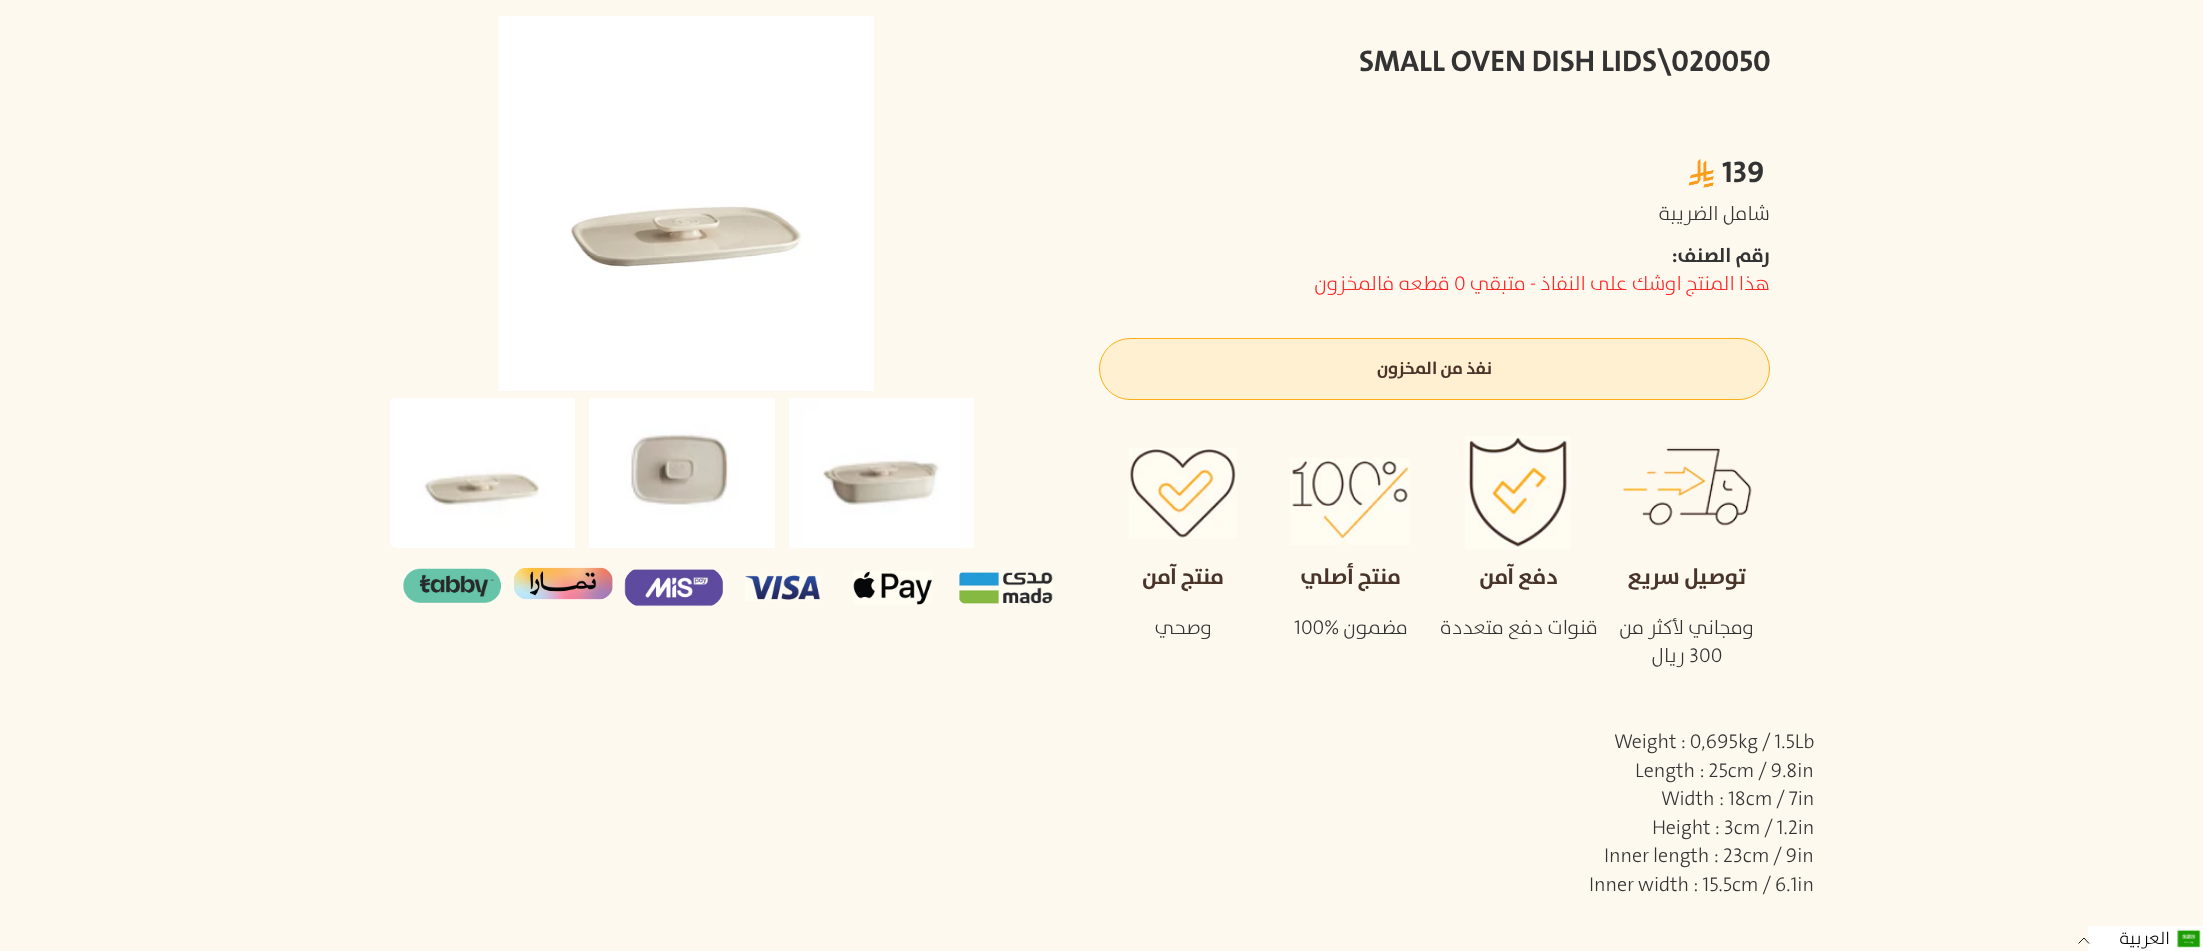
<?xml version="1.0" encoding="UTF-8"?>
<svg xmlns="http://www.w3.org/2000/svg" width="2203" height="951">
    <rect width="100%" height="100%" fill="#FEF9EF"/>
    <image x="498" y="16" width="376" height="375" href="img_01.png"/>
    <image x="390" y="398" width="185" height="150" href="img_02.png"/>
    <image x="589" y="398" width="186" height="150" href="img_03.png"/>
    <image x="789" y="398" width="185" height="150" href="img_04.png"/>
    <image x="403" y="568" width="99" height="35" href="img_05.png"/>
    <image x="514" y="567" width="99" height="33" href="img_06.png"/>
    <image x="624" y="569" width="99" height="38" href="img_07.png"/>
    <image x="745" y="575" width="76" height="26" href="img_08.png"/>
    <image x="853" y="571" width="79" height="34" href="img_09.png"/>
    <image x="959" y="572" width="94" height="32" href="img_10.png"/>
    <text x="1359" y="71" font-family="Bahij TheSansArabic" font-size="30" font-weight="700" fill="#333333">SMALL OVEN DISH LIDS\020050</text>
    <image x="1688" y="159" width="26" height="29" href="img_11.png"/>
    <text x="1722" y="182" font-family="Bahij TheSansArabic" font-size="30" font-weight="700" fill="#333333">139</text>
    <text x="1770" y="220" font-family="Bahij TheSansArabic" font-size="20" font-weight="300" direction="rtl" fill="#333333">شامل الضريبة</text>
    <text x="1770" y="262" font-family="Bahij TheSansArabic" font-size="20" font-weight="700" direction="rtl" fill="#333333">رقم الصنف:</text>
    <text x="1450" y="290" font-family="Bahij TheSansArabic" font-size="20" font-weight="300" direction="rtl" fill="#FF2826">قطعه فالمخزون</text>
    <text x="1454" y="290" font-family="Bahij TheSansArabic" font-size="20" font-weight="300" fill="#FF2826">0</text>
    <text x="1770" y="290" font-family="Bahij TheSansArabic" font-size="20" font-weight="300" direction="rtl" fill="#FF2826">هذا المنتج اوشك على النفاذ - متبقي</text>
    <rect x="1099.5" y="338.5" width="670" height="61" rx="30.5" fill="#FFF0D2" stroke="#FCAF17"/>
    <text x="1492" y="374" font-family="Bahij TheSansArabic" font-size="17.5" font-weight="700" direction="rtl" fill="#49342A">نفذ من المخزون</text>
    <image x="1129" y="448" width="108" height="91" href="img_12.png"/>
    <text x="1224" y="584" font-family="Bahij TheSansArabic" font-size="22.5" font-weight="700" direction="rtl" fill="#49342A">منتج آمن</text>
    <text x="1212" y="634" font-family="Bahij TheSansArabic" font-size="20" font-weight="300" direction="rtl" fill="#333333">وصحي</text>
    <image x="1290" y="458" width="120" height="87" href="img_13.png"/>
    <text x="1401" y="584" font-family="Bahij TheSansArabic" font-size="22.5" font-weight="700" direction="rtl" fill="#49342A">منتج أصلي</text>
    <text x="1294" y="634" font-family="Bahij TheSansArabic" font-size="20" font-weight="300" fill="#333333">100</text>
    <text x="1408" y="634" font-family="Bahij TheSansArabic" font-size="20" font-weight="300" direction="rtl" fill="#333333">مضمون %</text>
    <image x="1465" y="436" width="106" height="113" href="img_14.png"/>
    <text x="1558" y="584" font-family="Bahij TheSansArabic" font-size="22.5" font-weight="700" direction="rtl" fill="#49342A">دﻓﻊ آﻣﻦ</text>
    <text x="1598" y="634" font-family="Bahij TheSansArabic" font-size="20" font-weight="300" direction="rtl" fill="#333333">ﻗﻨﻮات دﻓﻊ ﻣﺘﻌﺪدة</text>
    <image x="1622" y="447" width="130" height="79" href="img_15.png"/>
    <text x="1746" y="584" font-family="Bahij TheSansArabic" font-size="22.5" font-weight="700" direction="rtl" fill="#49342A">ﺗﻮﺻﻴﻞ سريع</text>
    <text x="1754" y="634" font-family="Bahij TheSansArabic" font-size="20" font-weight="300" direction="rtl" fill="#333333">ومجاني لأكثر من</text>
    <text x="1685" y="662" font-family="Bahij TheSansArabic" font-size="20" font-weight="300" direction="rtl" fill="#333333">ريال</text>
    <text x="1689" y="662" font-family="Bahij TheSansArabic" font-size="20" font-weight="300" fill="#333333">300</text>
    <text x="1614" y="748" font-family="Bahij TheSansArabic" font-size="20" font-weight="300" fill="#333333">Weight : 0,695kg / 1.5Lb</text>
    <text x="1635" y="777" font-family="Bahij TheSansArabic" font-size="20" font-weight="300" fill="#333333">Length : 25cm / 9.8in</text>
    <text x="1661" y="805" font-family="Bahij TheSansArabic" font-size="20" font-weight="300" fill="#333333">Width : 18cm / 7in</text>
    <text x="1652" y="834" font-family="Bahij TheSansArabic" font-size="20" font-weight="300" fill="#333333">Height : 3cm / 1.2in</text>
    <text x="1604" y="862" font-family="Bahij TheSansArabic" font-size="20" font-weight="300" fill="#333333">Inner length : 23cm / 9in</text>
    <text x="1589" y="891" font-family="Bahij TheSansArabic" font-size="20" font-weight="300" fill="#333333">Inner width : 15.5cm / 6.1in</text>
    <rect x="2088" y="926" width="115" height="25" fill="#FFFFFF"/>
    <path d="M 2089 943.5 L 2084 938 L 2078.5 943.5" fill="none" stroke="#000000" stroke-width="0.9"/>
    <text x="2170" y="944" font-family="Bahij TheSansArabic" font-size="17.5" font-weight="300" direction="rtl" fill="#000000">العربية</text>
    <image x="2177" y="929" width="24" height="19" href="img_16.png"/>
</svg>
